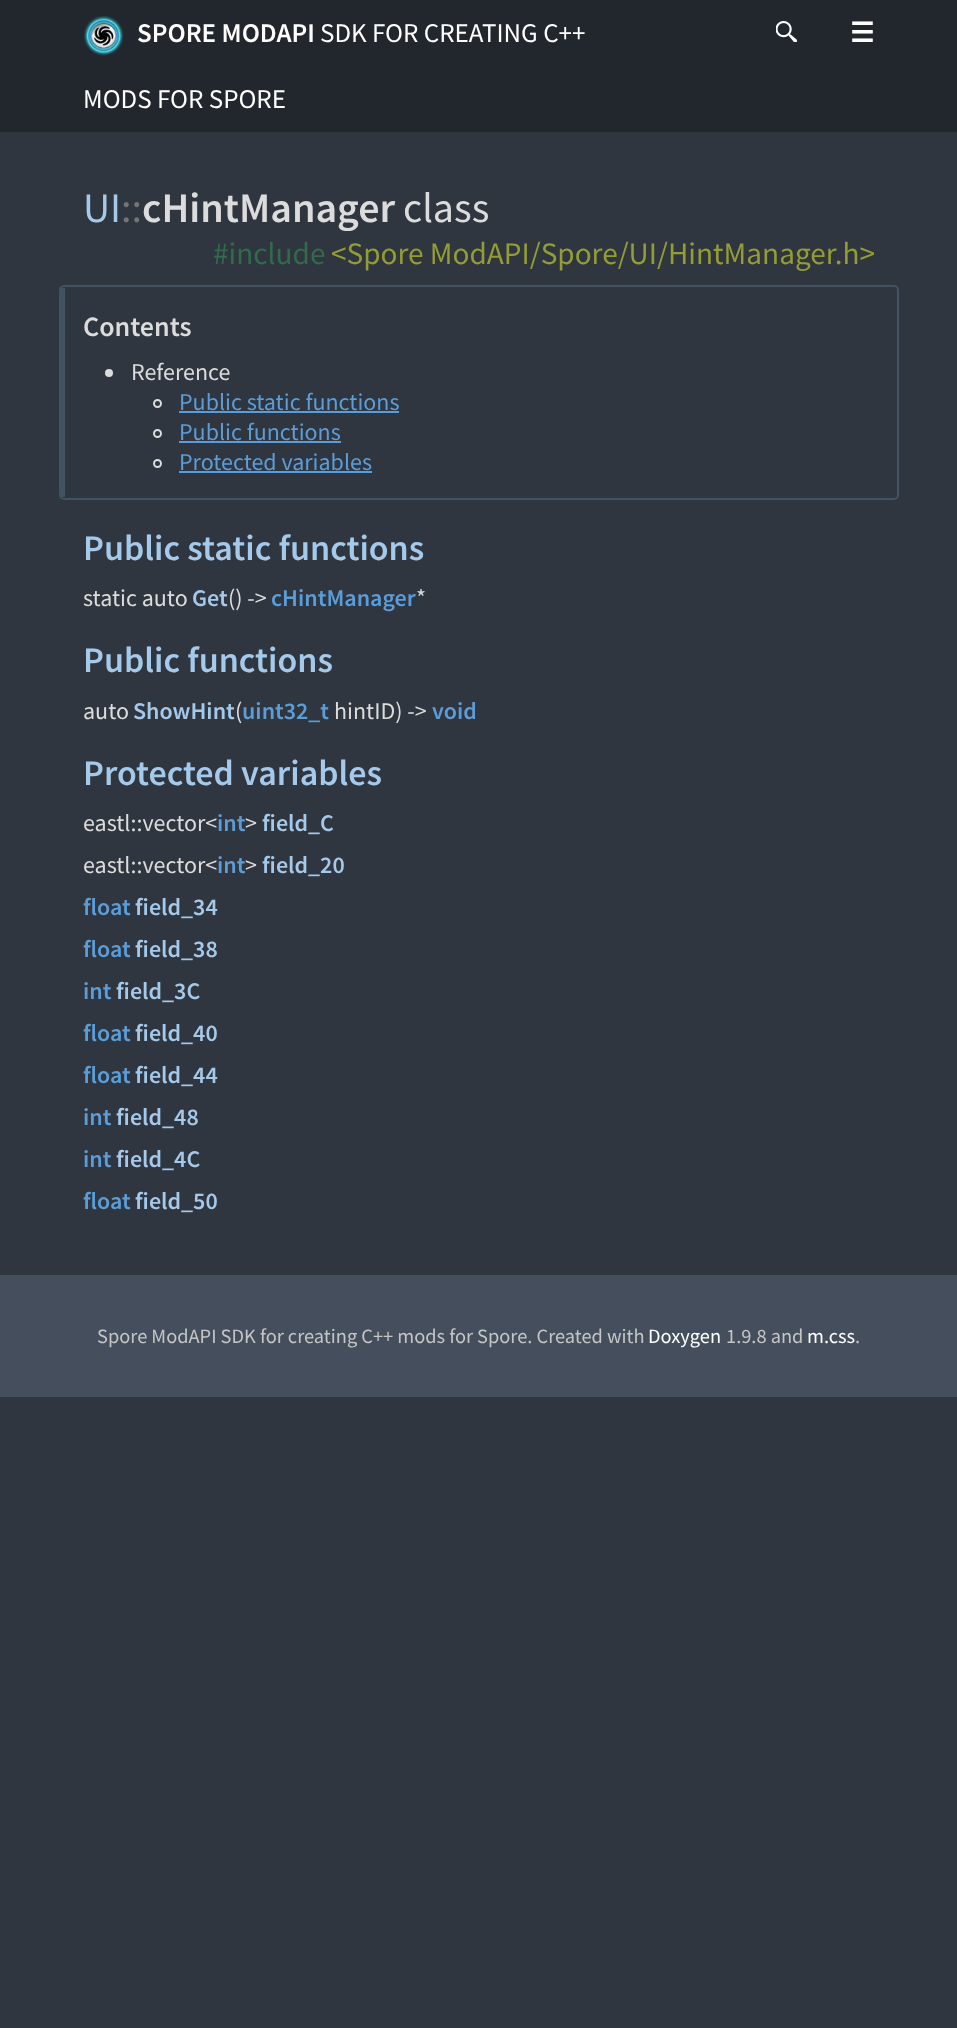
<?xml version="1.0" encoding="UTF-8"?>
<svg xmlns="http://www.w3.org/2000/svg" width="957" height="2028">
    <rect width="100%" height="100%" fill="#2F363F"/>
    <rect x="0" y="0" width="957" height="132" fill="#22272E"/>
    <image x="83" y="16" width="41" height="40" href="img_01.png"/>
    <text x="137" y="42" font-family="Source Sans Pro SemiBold" font-size="27" font-weight="600" fill="#FFFFFF">SPORE MODAPI</text>
    <text x="320" y="42" font-family="Source Sans Pro" font-size="27" fill="#FFFFFF">SDK FOR CREATING C++</text>
    <text x="83" y="108" font-family="Source Sans Pro" font-size="27" fill="#FFFFFF">MODS FOR SPORE</text>
    <image x="776" y="21" width="22" height="21" href="img_02.png"/>
    <text x="850" y="42" font-family="DejaVu Sans" font-size="27" font-weight="700" fill="#FFFFFF">☰</text>
    <text x="83" y="222" font-family="Source Sans Pro" font-size="42" fill="#A5C9EA">UI</text>
    <text x="121" y="222" font-family="Source Sans Pro" font-size="42" fill="#747474">::</text>
    <text x="142" y="222" font-family="Source Sans Pro SemiBold" font-size="42" font-weight="600" fill="#DCDCDC">cHintManager</text>
    <text x="403" y="222" font-family="Source Sans Pro" font-size="42" fill="#DCDCDC">class</text>
    <text x="213" y="264" font-family="Source Sans Pro" font-size="31.25" fill="#336A4C">#include</text>
    <text x="331" y="264" font-family="Source Sans Pro" font-size="31.25" fill="#949C34">&lt;Spore ModAPI/Spore/UI/HintManager.h&gt;</text>
    <rect x="60" y="286" width="838" height="213" rx="4" fill="none" stroke="#405363" stroke-width="2"/>
    <rect x="61" y="288" width="4" height="209" fill="#405363"/>
    <text x="83" y="336" font-family="Source Sans Pro SemiBold" font-size="28" font-weight="600" fill="#DCDCDC">Contents</text>
    <circle cx="109" cy="373" r="4" fill="#DCDCDC"/>
    <text x="131" y="380" font-family="Source Sans Pro" font-size="24" fill="#DCDCDC">Reference</text>
    <circle cx="157.5" cy="403.5" r="3.5" fill="none" stroke="#DCDCDC" stroke-width="2"/>
    <text x="179" y="410" font-family="Source Sans Pro" font-size="24" fill="#5B9DD9">Public static functions</text>
    <rect x="179" y="411" width="220" height="2" fill="#5B9DD9"/>
    <circle cx="157.5" cy="433.5" r="3.5" fill="none" stroke="#DCDCDC" stroke-width="2"/>
    <text x="179" y="440" font-family="Source Sans Pro" font-size="24" fill="#5B9DD9">Public functions</text>
    <rect x="179" y="441" width="162" height="2" fill="#5B9DD9"/>
    <circle cx="157.5" cy="463.5" r="3.5" fill="none" stroke="#DCDCDC" stroke-width="2"/>
    <text x="179" y="470" font-family="Source Sans Pro" font-size="24" fill="#5B9DD9">Protected variables</text>
    <rect x="179" y="471" width="193" height="2" fill="#5B9DD9"/>
    <text x="83" y="560" font-family="Source Sans Pro SemiBold" font-size="36" font-weight="600" fill="#A5C9EA">Public static functions</text>
    <text x="83" y="606" font-family="Source Sans Pro" font-size="24" fill="#DCDCDC">static auto</text>
    <text x="192" y="606" font-family="Source Sans Pro SemiBold" font-size="24" font-weight="600" fill="#A5C9EA">Get</text>
    <text x="228" y="606" font-family="Source Sans Pro" font-size="24" fill="#DCDCDC">() -&gt;</text>
    <text x="271" y="606" font-family="Source Sans Pro SemiBold" font-size="24" font-weight="600" fill="#5B9DD9">cHintManager</text>
    <text x="416" y="606" font-family="Source Sans Pro" font-size="24" fill="#DCDCDC">*</text>
    <text x="83" y="672" font-family="Source Sans Pro SemiBold" font-size="36" font-weight="600" fill="#A5C9EA">Public functions</text>
    <text x="83" y="719" font-family="Source Sans Pro" font-size="24" fill="#DCDCDC">auto</text>
    <text x="133" y="719" font-family="Source Sans Pro SemiBold" font-size="24" font-weight="600" fill="#A5C9EA">ShowHint</text>
    <text x="235" y="719" font-family="Source Sans Pro" font-size="24" fill="#DCDCDC">(</text>
    <text x="242" y="719" font-family="Source Sans Pro SemiBold" font-size="24" font-weight="600" fill="#5B9DD9">uint32_t</text>
    <text x="334" y="719" font-family="Source Sans Pro" font-size="24" fill="#DCDCDC">hintID) -&gt;</text>
    <text x="432" y="719" font-family="Source Sans Pro SemiBold" font-size="24" font-weight="600" fill="#5B9DD9">void</text>
    <text x="83" y="785" font-family="Source Sans Pro SemiBold" font-size="36" font-weight="600" fill="#A5C9EA">Protected variables</text>
    <text x="83" y="831" font-family="Source Sans Pro" font-size="24" fill="#DCDCDC">eastl::vector&lt;</text>
    <text x="217" y="831" font-family="Source Sans Pro SemiBold" font-size="24" font-weight="600" fill="#5B9DD9">int</text>
    <text x="245" y="831" font-family="Source Sans Pro" font-size="24" fill="#DCDCDC">&gt;</text>
    <text x="262" y="831" font-family="Source Sans Pro SemiBold" font-size="24" font-weight="600" fill="#A5C9EA">field_C</text>
    <text x="83" y="873" font-family="Source Sans Pro" font-size="24" fill="#DCDCDC">eastl::vector&lt;</text>
    <text x="217" y="873" font-family="Source Sans Pro SemiBold" font-size="24" font-weight="600" fill="#5B9DD9">int</text>
    <text x="245" y="873" font-family="Source Sans Pro" font-size="24" fill="#DCDCDC">&gt;</text>
    <text x="262" y="873" font-family="Source Sans Pro SemiBold" font-size="24" font-weight="600" fill="#A5C9EA">field_20</text>
    <text x="83" y="915" font-family="Source Sans Pro SemiBold" font-size="24" font-weight="600" fill="#5B9DD9">float</text>
    <text x="135" y="915" font-family="Source Sans Pro SemiBold" font-size="24" font-weight="600" fill="#A5C9EA">field_34</text>
    <text x="83" y="957" font-family="Source Sans Pro SemiBold" font-size="24" font-weight="600" fill="#5B9DD9">float</text>
    <text x="135" y="957" font-family="Source Sans Pro SemiBold" font-size="24" font-weight="600" fill="#A5C9EA">field_38</text>
    <text x="83" y="999" font-family="Source Sans Pro SemiBold" font-size="24" font-weight="600" fill="#5B9DD9">int</text>
    <text x="116" y="999" font-family="Source Sans Pro SemiBold" font-size="24" font-weight="600" fill="#A5C9EA">field_3C</text>
    <text x="83" y="1041" font-family="Source Sans Pro SemiBold" font-size="24" font-weight="600" fill="#5B9DD9">float</text>
    <text x="135" y="1041" font-family="Source Sans Pro SemiBold" font-size="24" font-weight="600" fill="#A5C9EA">field_40</text>
    <text x="83" y="1083" font-family="Source Sans Pro SemiBold" font-size="24" font-weight="600" fill="#5B9DD9">float</text>
    <text x="135" y="1083" font-family="Source Sans Pro SemiBold" font-size="24" font-weight="600" fill="#A5C9EA">field_44</text>
    <text x="83" y="1125" font-family="Source Sans Pro SemiBold" font-size="24" font-weight="600" fill="#5B9DD9">int</text>
    <text x="116" y="1125" font-family="Source Sans Pro SemiBold" font-size="24" font-weight="600" fill="#A5C9EA">field_48</text>
    <text x="83" y="1167" font-family="Source Sans Pro SemiBold" font-size="24" font-weight="600" fill="#5B9DD9">int</text>
    <text x="116" y="1167" font-family="Source Sans Pro SemiBold" font-size="24" font-weight="600" fill="#A5C9EA">field_4C</text>
    <text x="83" y="1209" font-family="Source Sans Pro SemiBold" font-size="24" font-weight="600" fill="#5B9DD9">float</text>
    <text x="135" y="1209" font-family="Source Sans Pro SemiBold" font-size="24" font-weight="600" fill="#A5C9EA">field_50</text>
    <rect x="0" y="1275" width="957" height="122" fill="#444E5C"/>
    <text x="97" y="1343" font-family="Source Sans Pro" font-size="20.4" fill="#C5C5C5">Spore ModAPI SDK for creating C++ mods for Spore. Created with</text>
    <text x="648" y="1343" font-family="Source Sans Pro" font-size="20.4" fill="#FFFFFF">Doxygen</text>
    <text x="726" y="1343" font-family="Source Sans Pro" font-size="20.4" fill="#C5C5C5">1.9.8 and</text>
    <text x="807" y="1343" font-family="Source Sans Pro" font-size="20.4" fill="#FFFFFF">m.css</text>
    <text x="855" y="1343" font-family="Source Sans Pro" font-size="20.4" fill="#C5C5C5">.</text>
</svg>
